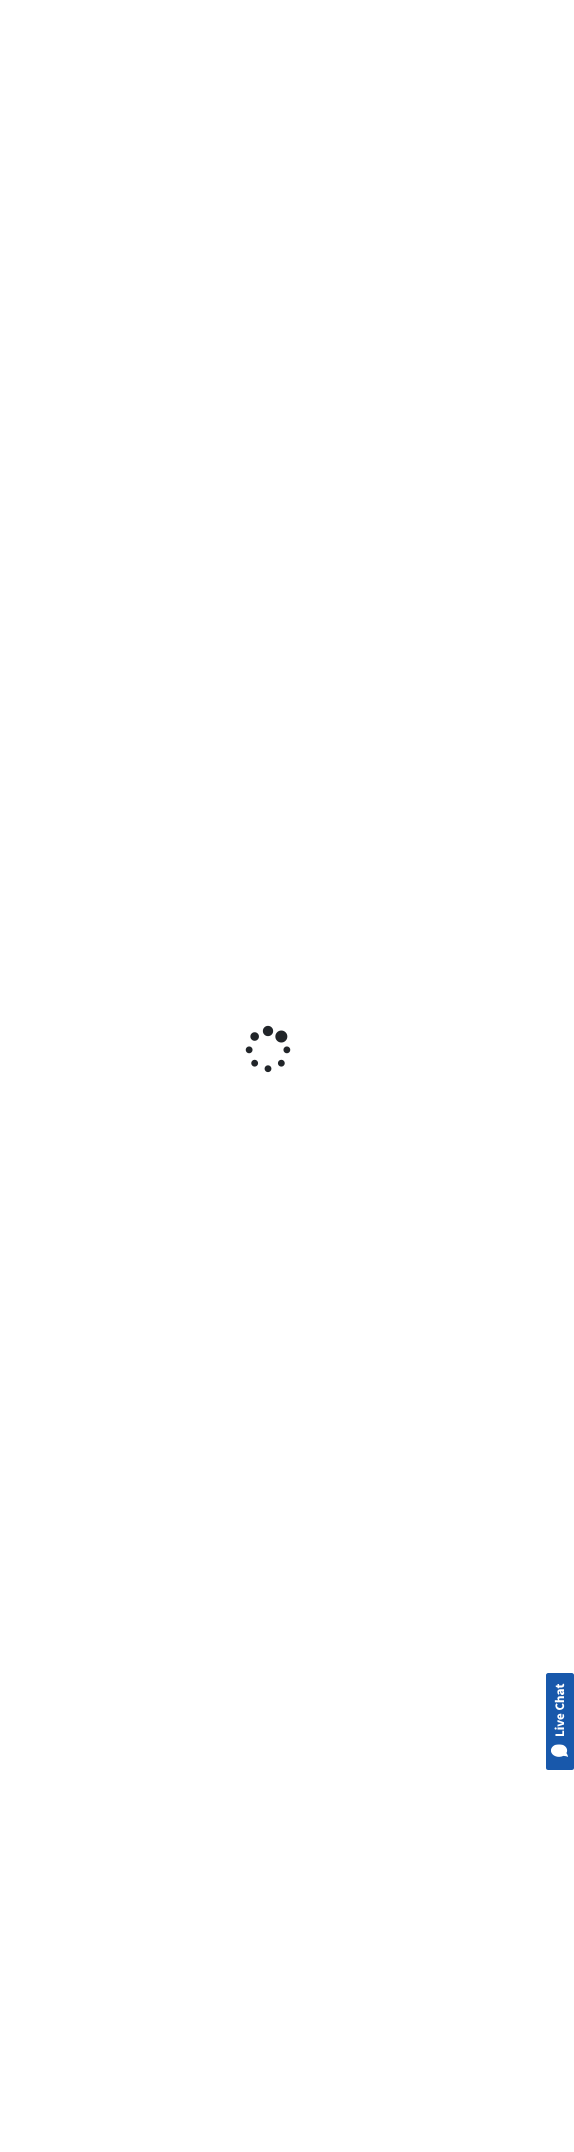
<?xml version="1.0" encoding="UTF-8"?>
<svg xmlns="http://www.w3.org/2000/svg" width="574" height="2152">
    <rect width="100%" height="100%" fill="#FFFFFF"/>
    <image x="245" y="1025" width="46" height="48" href="img_01.png"/>
    <path d="M 546 1768 V 1675 C 546 1674 547 1673 548 1673 H 572 C 573 1673 574 1674 574 1675 V 1768 C 574 1769 573 1770 572 1770 H 548 C 547 1770 546 1769 546 1768 Z" fill="#1858AB"/>
    <text x="564" y="1737" transform="rotate(-90 564 1737)" font-family="Source Sans Pro" font-size="13" font-weight="700" fill="#FFFFFF">Live Chat</text>
    <image x="551" y="1744" width="17" height="13" href="img_02.png"/>
</svg>
